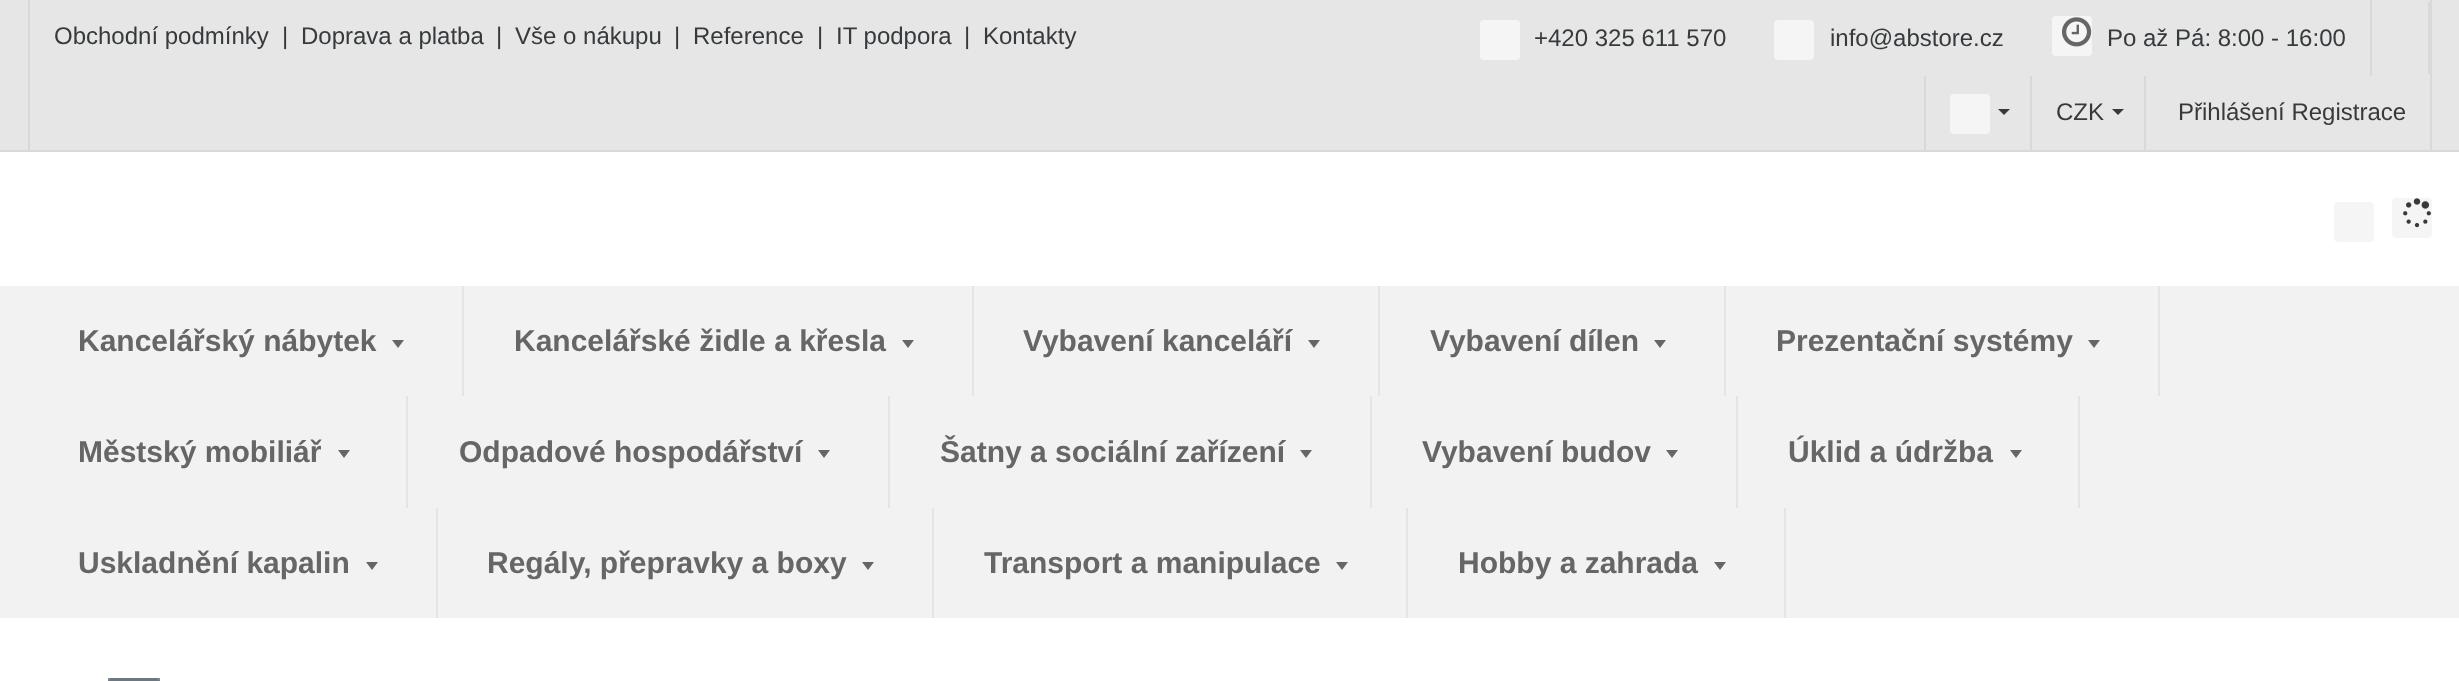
<?xml version="1.0" encoding="UTF-8"?>
<svg xmlns="http://www.w3.org/2000/svg" width="2459" height="681">
    <rect width="100%" height="100%" fill="#FFFFFF"/>
    <rect x="0" y="0" width="2459" height="150" fill="#E6E6E6"/>
    <rect x="0" y="150" width="2459" height="2" fill="#D9D9D9"/>
    <rect x="2430" y="0" width="2" height="150" fill="#D9D9D9"/>
    <rect x="28" y="0" width="2" height="150" fill="#D9D9D9"/>
    <text x="54" y="44" font-family="Liberation Sans" font-size="24" fill="#373A3C">Obchodní podmínky</text>
    <text x="282" y="44" font-family="Liberation Sans" font-size="24" fill="#373A3C">|</text>
    <text x="301" y="44" font-family="Liberation Sans" font-size="24" fill="#373A3C">Doprava a platba</text>
    <text x="496" y="44" font-family="Liberation Sans" font-size="24" fill="#373A3C">|</text>
    <text x="515" y="44" font-family="Liberation Sans" font-size="24" fill="#373A3C">Vše o nákupu</text>
    <text x="674" y="44" font-family="Liberation Sans" font-size="24" fill="#373A3C">|</text>
    <text x="693" y="44" font-family="Liberation Sans" font-size="24" fill="#373A3C">Reference</text>
    <text x="817" y="44" font-family="Liberation Sans" font-size="24" fill="#373A3C">|</text>
    <text x="836" y="44" font-family="Liberation Sans" font-size="24" fill="#373A3C">IT podpora</text>
    <text x="964" y="44" font-family="Liberation Sans" font-size="24" fill="#373A3C">|</text>
    <text x="983" y="44" font-family="Liberation Sans" font-size="24" fill="#373A3C">Kontakty</text>
    <rect x="2370" y="0" width="2" height="76" fill="#D9D9D9"/>
    <rect x="1480" y="20" width="40" height="40" rx="4" fill="#F5F5F5"/>
    <text x="1534" y="46" font-family="Liberation Sans" font-size="24" fill="#373A3C">+420 325 611 570</text>
    <rect x="1774" y="20" width="40" height="40" rx="4" fill="#F5F5F5"/>
    <text x="1830" y="46" font-family="Liberation Sans" font-size="24" fill="#373A3C">info@abstore.cz</text>
    <rect x="2052" y="16" width="40" height="40" rx="4" fill="#F5F5F5"/>
    <image x="2062" y="17" width="30" height="30" href="img_01.png"/>
    <text x="2107" y="46" font-family="Liberation Sans" font-size="24" fill="#373A3C">Po až Pá: 8:00 - 16:00</text>
    <rect x="2428" y="2" width="2" height="72" fill="#D9D9D9"/>
    <rect x="1924" y="76" width="2" height="74" fill="#D9D9D9"/>
    <rect x="1950" y="94" width="40" height="40" rx="4" fill="#F5F5F5"/>
    <path d="M 1998 109 H 2010 L 2004 115 Z" fill="#373A3C"/>
    <rect x="2030" y="76" width="2" height="74" fill="#D9D9D9"/>
    <text x="2056" y="120" font-family="Liberation Sans" font-size="24" fill="#373A3C">CZK</text>
    <path d="M 2112 109 H 2124 L 2118 115 Z" fill="#373A3C"/>
    <rect x="2144" y="76" width="2" height="74" fill="#D9D9D9"/>
    <text x="2178" y="120" font-family="Liberation Sans" font-size="24" fill="#373A3C">Přihlášení Registrace</text>
    <rect x="2334" y="202" width="40" height="40" rx="4" fill="#F5F5F5"/>
    <rect x="2392" y="198" width="40" height="40" rx="4" fill="#F5F5F5"/>
    <image x="2403" y="198" width="28" height="30" href="img_02.png"/>
    <rect x="0" y="286" width="2459" height="332" fill="#F2F2F2"/>
    <rect x="462" y="286" width="2" height="110" fill="#E5E5E5"/>
    <text x="78" y="351" font-family="Liberation Sans" font-size="30" font-weight="700" fill="#666666">Kancelářský nábytek</text>
    <path d="M 392 340 H 404 L 398 348 Z" fill="#666666"/>
    <rect x="972" y="286" width="2" height="110" fill="#E5E5E5"/>
    <text x="514" y="351" font-family="Liberation Sans" font-size="30" font-weight="700" fill="#666666">Kancelářské židle a křesla</text>
    <path d="M 902 340 H 914 L 908 348 Z" fill="#666666"/>
    <rect x="1378" y="286" width="2" height="110" fill="#E5E5E5"/>
    <text x="1023" y="351" font-family="Liberation Sans" font-size="30" font-weight="700" fill="#666666">Vybavení kanceláří</text>
    <path d="M 1308 340 H 1320 L 1314 348 Z" fill="#666666"/>
    <rect x="1724" y="286" width="2" height="110" fill="#E5E5E5"/>
    <text x="1430" y="351" font-family="Liberation Sans" font-size="30" font-weight="700" fill="#666666">Vybavení dílen</text>
    <path d="M 1654 340 H 1666 L 1660 348 Z" fill="#666666"/>
    <rect x="2158" y="286" width="2" height="110" fill="#E5E5E5"/>
    <text x="1776" y="351" font-family="Liberation Sans" font-size="30" font-weight="700" fill="#666666">Prezentační systémy</text>
    <path d="M 2088 340 H 2100 L 2094 348 Z" fill="#666666"/>
    <rect x="406" y="396" width="2" height="112" fill="#E5E5E5"/>
    <text x="78" y="462" font-family="Liberation Sans" font-size="30" font-weight="700" fill="#666666">Městský mobiliář</text>
    <path d="M 338 450 H 350 L 344 458 Z" fill="#666666"/>
    <rect x="888" y="396" width="2" height="112" fill="#E5E5E5"/>
    <text x="459" y="462" font-family="Liberation Sans" font-size="30" font-weight="700" fill="#666666">Odpadové hospodářství</text>
    <path d="M 818 450 H 830 L 824 458 Z" fill="#666666"/>
    <rect x="1370" y="396" width="2" height="112" fill="#E5E5E5"/>
    <text x="940" y="462" font-family="Liberation Sans" font-size="30" font-weight="700" fill="#666666">Šatny a sociální zařízení</text>
    <path d="M 1300 450 H 1312 L 1306 458 Z" fill="#666666"/>
    <rect x="1736" y="396" width="2" height="112" fill="#E5E5E5"/>
    <text x="1422" y="462" font-family="Liberation Sans" font-size="30" font-weight="700" fill="#666666">Vybavení budov</text>
    <path d="M 1666 450 H 1678 L 1672 458 Z" fill="#666666"/>
    <rect x="2078" y="396" width="2" height="112" fill="#E5E5E5"/>
    <text x="1788" y="462" font-family="Liberation Sans" font-size="30" font-weight="700" fill="#666666">Úklid a údržba</text>
    <path d="M 2010 450 H 2022 L 2016 458 Z" fill="#666666"/>
    <rect x="436" y="508" width="2" height="110" fill="#E5E5E5"/>
    <text x="78" y="573" font-family="Liberation Sans" font-size="30" font-weight="700" fill="#666666">Uskladnění kapalin</text>
    <path d="M 366 562 H 378 L 372 570 Z" fill="#666666"/>
    <rect x="932" y="508" width="2" height="110" fill="#E5E5E5"/>
    <text x="487" y="573" font-family="Liberation Sans" font-size="30" font-weight="700" fill="#666666">Regály, přepravky a boxy</text>
    <path d="M 862 562 H 874 L 868 570 Z" fill="#666666"/>
    <rect x="1406" y="508" width="2" height="110" fill="#E5E5E5"/>
    <text x="984" y="573" font-family="Liberation Sans" font-size="30" font-weight="700" fill="#666666">Transport a manipulace</text>
    <path d="M 1336 562 H 1348 L 1342 570 Z" fill="#666666"/>
    <rect x="1784" y="508" width="2" height="110" fill="#E5E5E5"/>
    <text x="1458" y="573" font-family="Liberation Sans" font-size="30" font-weight="700" fill="#666666">Hobby a zahrada</text>
    <path d="M 1714 562 H 1726 L 1720 570 Z" fill="#666666"/>
    <image x="108" y="678" width="52" height="3" href="img_03.png"/>
</svg>
